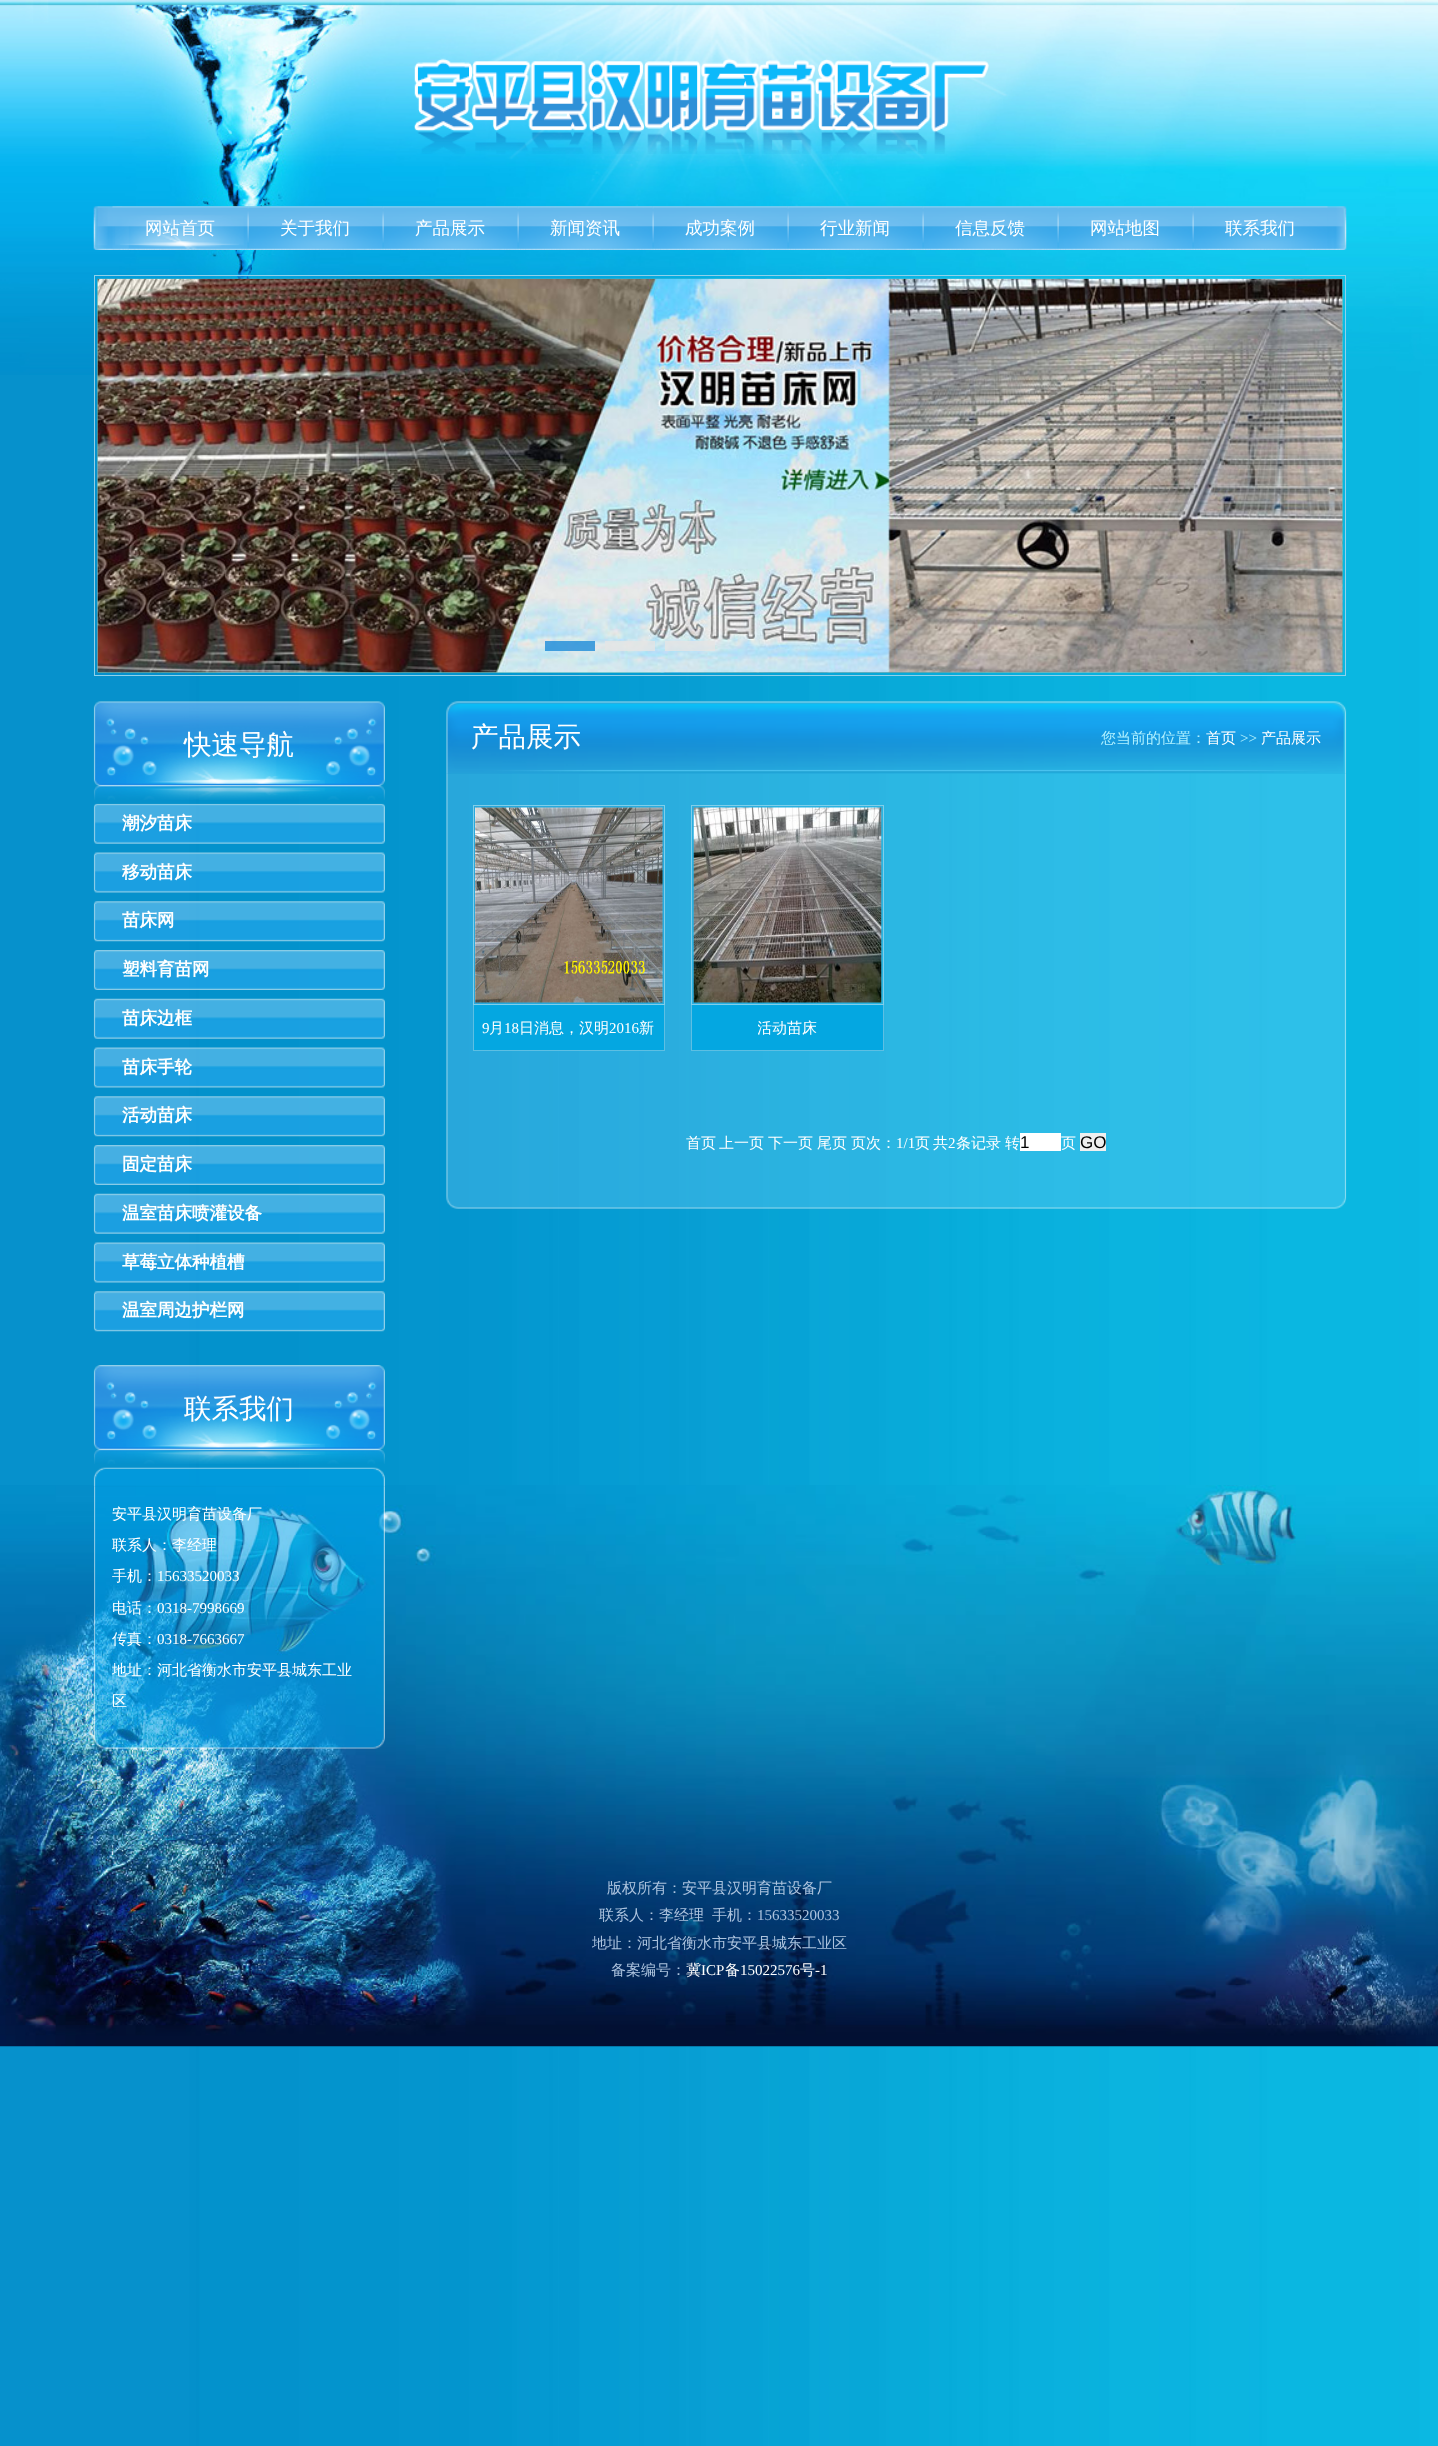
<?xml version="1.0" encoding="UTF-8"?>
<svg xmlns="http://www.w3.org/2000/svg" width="1438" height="2446">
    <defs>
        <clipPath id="clip1"><rect x="758" y="1005" width="60" height="45"/></clipPath>
    </defs>
    <rect width="100%" height="100%" fill="#FFFFFF"/>
    <image x="0" y="375" width="1438" height="2071" href="img_01.png"/>
    <image x="0" y="0" width="1438" height="375" href="img_02.png"/>
    <image x="414" y="58" width="575" height="96" href="img_03.png"/>
    <image x="93" y="206" width="1254" height="44" href="img_04.png"/>
    <image x="112" y="206" width="136" height="44" href="img_05.png"/>
    <text x="145" y="234" font-family="WenQuanYi Zen Hei" font-size="17.5" font-weight="500" fill="#FFFFFF">网站首页</text>
    <image x="247" y="206" width="136" height="44" href="img_06.png"/>
    <text x="280" y="234" font-family="WenQuanYi Zen Hei" font-size="17.5" font-weight="500" fill="#FFFFFF">关于我们</text>
    <image x="382" y="206" width="136" height="44" href="img_07.png"/>
    <text x="415" y="234" font-family="WenQuanYi Zen Hei" font-size="17.5" font-weight="500" fill="#FFFFFF">产品展示</text>
    <image x="517" y="206" width="136" height="44" href="img_08.png"/>
    <text x="550" y="234" font-family="WenQuanYi Zen Hei" font-size="17.5" font-weight="500" fill="#FFFFFF">新闻资讯</text>
    <image x="652" y="206" width="136" height="44" href="img_09.png"/>
    <text x="685" y="234" font-family="WenQuanYi Zen Hei" font-size="17.5" font-weight="500" fill="#FFFFFF">成功案例</text>
    <image x="787" y="206" width="136" height="44" href="img_10.png"/>
    <text x="820" y="234" font-family="WenQuanYi Zen Hei" font-size="17.5" font-weight="500" fill="#FFFFFF">行业新闻</text>
    <image x="922" y="206" width="136" height="44" href="img_11.png"/>
    <text x="955" y="234" font-family="WenQuanYi Zen Hei" font-size="17.5" font-weight="500" fill="#FFFFFF">信息反馈</text>
    <image x="1057" y="206" width="136" height="44" href="img_12.png"/>
    <text x="1090" y="234" font-family="WenQuanYi Zen Hei" font-size="17.5" font-weight="500" fill="#FFFFFF">网站地图</text>
    <image x="1192" y="206" width="136" height="44" href="img_13.png"/>
    <text x="1225" y="234" font-family="WenQuanYi Zen Hei" font-size="17.5" font-weight="500" fill="#FFFFFF">联系我们</text>
    <rect x="94.5" y="275.5" width="1251" height="400" fill="none" stroke="#90D1EA"/>
    <image x="97" y="278" width="1246" height="395" href="img_14.png"/>
    <image x="97" y="278" width="1246" height="395" href="img_15.png"/>
    <image x="97" y="278" width="1246" height="395" href="img_16.png"/>
    <rect x="545" y="641" width="50" height="10" fill="#1D8BD8" fill-opacity="0.8"/>
    <rect x="605" y="641" width="50" height="10" fill="#E5E5E5" fill-opacity="0.8"/>
    <rect x="665" y="641" width="50" height="10" fill="#E5E5E5" fill-opacity="0.8"/>
    <image x="0" y="1485" width="1438" height="562" href="img_17.png"/>
    <image x="93" y="701" width="292" height="99" href="img_18.png"/>
    <text x="184" y="754" font-family="WenQuanYi Zen Hei" font-size="27.5" font-weight="500" fill="#FFFFFF">快速导航</text>
    <image x="93" y="803" width="292" height="41" href="img_19.png"/>
    <text x="122" y="829" font-family="WenQuanYi Zen Hei" font-size="17.5" font-weight="700" fill="#FFFFFF">潮汐苗床</text>
    <image x="93" y="852" width="292" height="41" href="img_20.png"/>
    <text x="122" y="878" font-family="WenQuanYi Zen Hei" font-size="17.5" font-weight="700" fill="#FFFFFF">移动苗床</text>
    <image x="93" y="901" width="292" height="41" href="img_21.png"/>
    <text x="122" y="926" font-family="WenQuanYi Zen Hei" font-size="17.5" font-weight="700" fill="#FFFFFF">苗床网</text>
    <image x="93" y="950" width="292" height="40" href="img_22.png"/>
    <text x="122" y="975" font-family="WenQuanYi Zen Hei" font-size="17.5" font-weight="700" fill="#FFFFFF">塑料育苗网</text>
    <image x="93" y="998" width="292" height="41" href="img_23.png"/>
    <text x="122" y="1024" font-family="WenQuanYi Zen Hei" font-size="17.5" font-weight="700" fill="#FFFFFF">苗床边框</text>
    <image x="93" y="1047" width="292" height="41" href="img_20.png"/>
    <text x="122" y="1073" font-family="WenQuanYi Zen Hei" font-size="17.5" font-weight="700" fill="#FFFFFF">苗床手轮</text>
    <image x="93" y="1096" width="292" height="41" href="img_21.png"/>
    <text x="122" y="1121" font-family="WenQuanYi Zen Hei" font-size="17.5" font-weight="700" fill="#FFFFFF">活动苗床</text>
    <image x="93" y="1145" width="292" height="40" href="img_24.png"/>
    <text x="122" y="1170" font-family="WenQuanYi Zen Hei" font-size="17.5" font-weight="700" fill="#FFFFFF">固定苗床</text>
    <image x="93" y="1193" width="292" height="41" href="img_23.png"/>
    <text x="122" y="1219" font-family="WenQuanYi Zen Hei" font-size="17.5" font-weight="700" fill="#FFFFFF">温室苗床喷灌设备</text>
    <image x="93" y="1242" width="292" height="41" href="img_20.png"/>
    <text x="122" y="1268" font-family="WenQuanYi Zen Hei" font-size="17.5" font-weight="700" fill="#FFFFFF">草莓立体种植槽</text>
    <image x="93" y="1291" width="292" height="41" href="img_21.png"/>
    <text x="122" y="1316" font-family="WenQuanYi Zen Hei" font-size="17.5" font-weight="700" fill="#FFFFFF">温室周边护栏网</text>
    <image x="93" y="1365" width="292" height="99" href="img_25.png"/>
    <text x="184" y="1418" font-family="WenQuanYi Zen Hei" font-size="27.5" font-weight="500" fill="#FFFFFF">联系我们</text>
    <image x="93" y="1467" width="292" height="20" href="img_26.png"/>
    <image x="94" y="1486" width="291" height="244" href="img_27.png"/>
    <text x="112" y="1519" font-family="WenQuanYi Zen Hei" font-size="15" font-weight="500" fill="#FFFFFF">安平县汉明育苗设备厂</text>
    <text x="112" y="1550" font-family="WenQuanYi Zen Hei" font-size="15" font-weight="500" fill="#FFFFFF">联系人：李经理</text>
    <text x="112" y="1581" font-family="WenQuanYi Zen Hei" font-size="15" font-weight="500" fill="#FFFFFF">手机：</text>
    <text x="157" y="1581" font-family="Liberation Serif" font-size="15" fill="#FFFFFF">15633520033</text>
    <text x="112" y="1613" font-family="WenQuanYi Zen Hei" font-size="15" font-weight="500" fill="#FFFFFF">电话：</text>
    <text x="157" y="1613" font-family="Liberation Serif" font-size="15" fill="#FFFFFF">0318-7998669</text>
    <text x="112" y="1644" font-family="WenQuanYi Zen Hei" font-size="15" font-weight="500" fill="#FFFFFF">传真：</text>
    <text x="157" y="1644" font-family="Liberation Serif" font-size="15" fill="#FFFFFF">0318-7663667</text>
    <text x="112" y="1675" font-family="WenQuanYi Zen Hei" font-size="15" font-weight="500" fill="#FFFFFF">地址：河北省衡水市安平县城东工业</text>
    <text x="112" y="1706" font-family="WenQuanYi Zen Hei" font-size="15" font-weight="500" fill="#FFFFFF">区</text>
    <image x="93" y="1730" width="292" height="19" href="img_28.png"/>
    <image x="446" y="701" width="901" height="73" href="img_29.png"/>
    <text x="471" y="746" font-family="WenQuanYi Zen Hei" font-size="27.5" font-weight="500" fill="#FFFFFF">产品展示</text>
    <text x="1101" y="743" font-family="WenQuanYi Zen Hei" font-size="15" font-weight="500" fill="#AFF1FF">您当前的位置：</text>
    <text x="1206" y="743" font-family="WenQuanYi Zen Hei" font-size="15" font-weight="500" fill="#FFFFFF">首页</text>
    <text x="1240" y="743" font-family="Liberation Serif" font-size="15" fill="#AFF1FF">&gt;&gt;</text>
    <text x="1261" y="743" font-family="WenQuanYi Zen Hei" font-size="15" font-weight="500" fill="#FFFFFF">产品展示</text>
    <image x="446" y="773" width="901" height="417" href="img_30.png"/>
    <rect x="473.5" y="805.5" width="191" height="199" fill="none" stroke="#80CEE9"/>
    <image x="475" y="807" width="188" height="196" href="img_31.png"/>
    <rect x="474" y="1005" width="190" height="45" fill="#04A7E1"/>
    <rect x="664" y="1005" width="1" height="46" fill="#5DBFE3"/>
    <rect x="473" y="1050" width="192" height="1" fill="#5DBFE3"/>
    <rect x="473" y="1005" width="1" height="46" fill="#5DBFE3"/>
    <text x="482" y="1033" font-family="Liberation Serif" font-size="15" fill="#FFFFFF">9</text>
    <text x="489" y="1033" font-family="WenQuanYi Zen Hei" font-size="15" font-weight="500" fill="#FFFFFF">月</text>
    <text x="504" y="1033" font-family="Liberation Serif" font-size="15" fill="#FFFFFF">18</text>
    <text x="519" y="1033" font-family="WenQuanYi Zen Hei" font-size="15" font-weight="500" fill="#FFFFFF">日消息，汉明</text>
    <text x="609" y="1033" font-family="Liberation Serif" font-size="15" fill="#FFFFFF">2016</text>
    <text x="639" y="1033" font-family="WenQuanYi Zen Hei" font-size="15" font-weight="500" fill="#FFFFFF">新</text>
    <rect x="691.5" y="805.5" width="192" height="199" fill="none" stroke="#80CEE9"/>
    <image x="693" y="807" width="189" height="196" href="img_32.png"/>
    <rect x="692" y="1005" width="191" height="45" fill="#04A7E1"/>
    <rect x="883" y="1005" width="1" height="46" fill="#5DBFE3"/>
    <rect x="691" y="1050" width="193" height="1" fill="#5DBFE3"/>
    <rect x="691" y="1005" width="1" height="46" fill="#5DBFE3"/>
    <g clip-path="url(#clip1)">
        <text x="757" y="1033" font-family="WenQuanYi Zen Hei" font-size="15" font-weight="500" fill="#FFFFFF">活动苗床</text>
    </g>
    <text x="686" y="1148" font-family="WenQuanYi Zen Hei" font-size="15" font-weight="500" fill="#FFFFFF">首页</text>
    <text x="719" y="1148" font-family="WenQuanYi Zen Hei" font-size="15" font-weight="500" fill="#FFFFFF">上一页</text>
    <text x="768" y="1148" font-family="WenQuanYi Zen Hei" font-size="15" font-weight="500" fill="#FFFFFF">下一页</text>
    <text x="817" y="1148" font-family="WenQuanYi Zen Hei" font-size="15" font-weight="500" fill="#FFFFFF">尾页</text>
    <text x="851" y="1148" font-family="WenQuanYi Zen Hei" font-size="15" font-weight="500" fill="#FFFFFF">页次：</text>
    <text x="896" y="1148" font-family="Liberation Serif" font-size="15" fill="#FFFFFF">1/1</text>
    <text x="915" y="1148" font-family="WenQuanYi Zen Hei" font-size="15" font-weight="500" fill="#FFFFFF">页</text>
    <text x="933" y="1148" font-family="WenQuanYi Zen Hei" font-size="15" font-weight="500" fill="#FFFFFF">共</text>
    <text x="948" y="1148" font-family="Liberation Serif" font-size="15" fill="#FFFFFF">2</text>
    <text x="956" y="1148" font-family="WenQuanYi Zen Hei" font-size="15" font-weight="500" fill="#FFFFFF">条记录</text>
    <text x="1005" y="1148" font-family="WenQuanYi Zen Hei" font-size="15" font-weight="500" fill="#FFFFFF">转</text>
    <rect x="1020" y="1133" width="41" height="18" fill="#FFFFFF"/>
    <text x="1020" y="1148" font-family="Liberation Sans" font-size="17" fill="#000000">1</text>
    <text x="1061" y="1148" font-family="WenQuanYi Zen Hei" font-size="15" font-weight="500" fill="#FFFFFF">页</text>
    <rect x="1080" y="1133" width="26" height="18" fill="#EFEFEF"/>
    <text x="1080" y="1148" font-family="Liberation Sans" font-size="17" fill="#000000">GO</text>
    <image x="446" y="1190" width="901" height="19" href="img_33.png"/>
    <text x="607" y="1893" font-family="WenQuanYi Zen Hei" font-size="15" font-weight="500" fill="#ACC3DE">版权所有：安平县汉明育苗设备厂</text>
    <text x="599" y="1920" font-family="WenQuanYi Zen Hei" font-size="15" font-weight="500" fill="#ACC3DE">联系人：李经理</text>
    <text x="712" y="1920" font-family="WenQuanYi Zen Hei" font-size="15" font-weight="500" fill="#ACC3DE">手机：</text>
    <text x="757" y="1920" font-family="Liberation Serif" font-size="15" fill="#ACC3DE">15633520033</text>
    <text x="592" y="1948" font-family="WenQuanYi Zen Hei" font-size="15" font-weight="500" fill="#ACC3DE">地址：河北省衡水市安平县城东工业区</text>
    <text x="611" y="1975" font-family="WenQuanYi Zen Hei" font-size="15" font-weight="500" fill="#ACC3DE">备案编号：</text>
    <text x="686" y="1975" font-family="WenQuanYi Zen Hei" font-size="15" font-weight="500" fill="#FFFFFF">冀</text>
    <text x="701" y="1975" font-family="Liberation Serif" font-size="15" fill="#FFFFFF">ICP</text>
    <text x="725" y="1975" font-family="WenQuanYi Zen Hei" font-size="15" font-weight="500" fill="#FFFFFF">备</text>
    <text x="740" y="1975" font-family="Liberation Serif" font-size="15" fill="#FFFFFF">15022576</text>
    <text x="800" y="1975" font-family="WenQuanYi Zen Hei" font-size="15" font-weight="500" fill="#FFFFFF">号</text>
    <text x="815" y="1975" font-family="Liberation Serif" font-size="15" fill="#FFFFFF">-1</text>
</svg>
